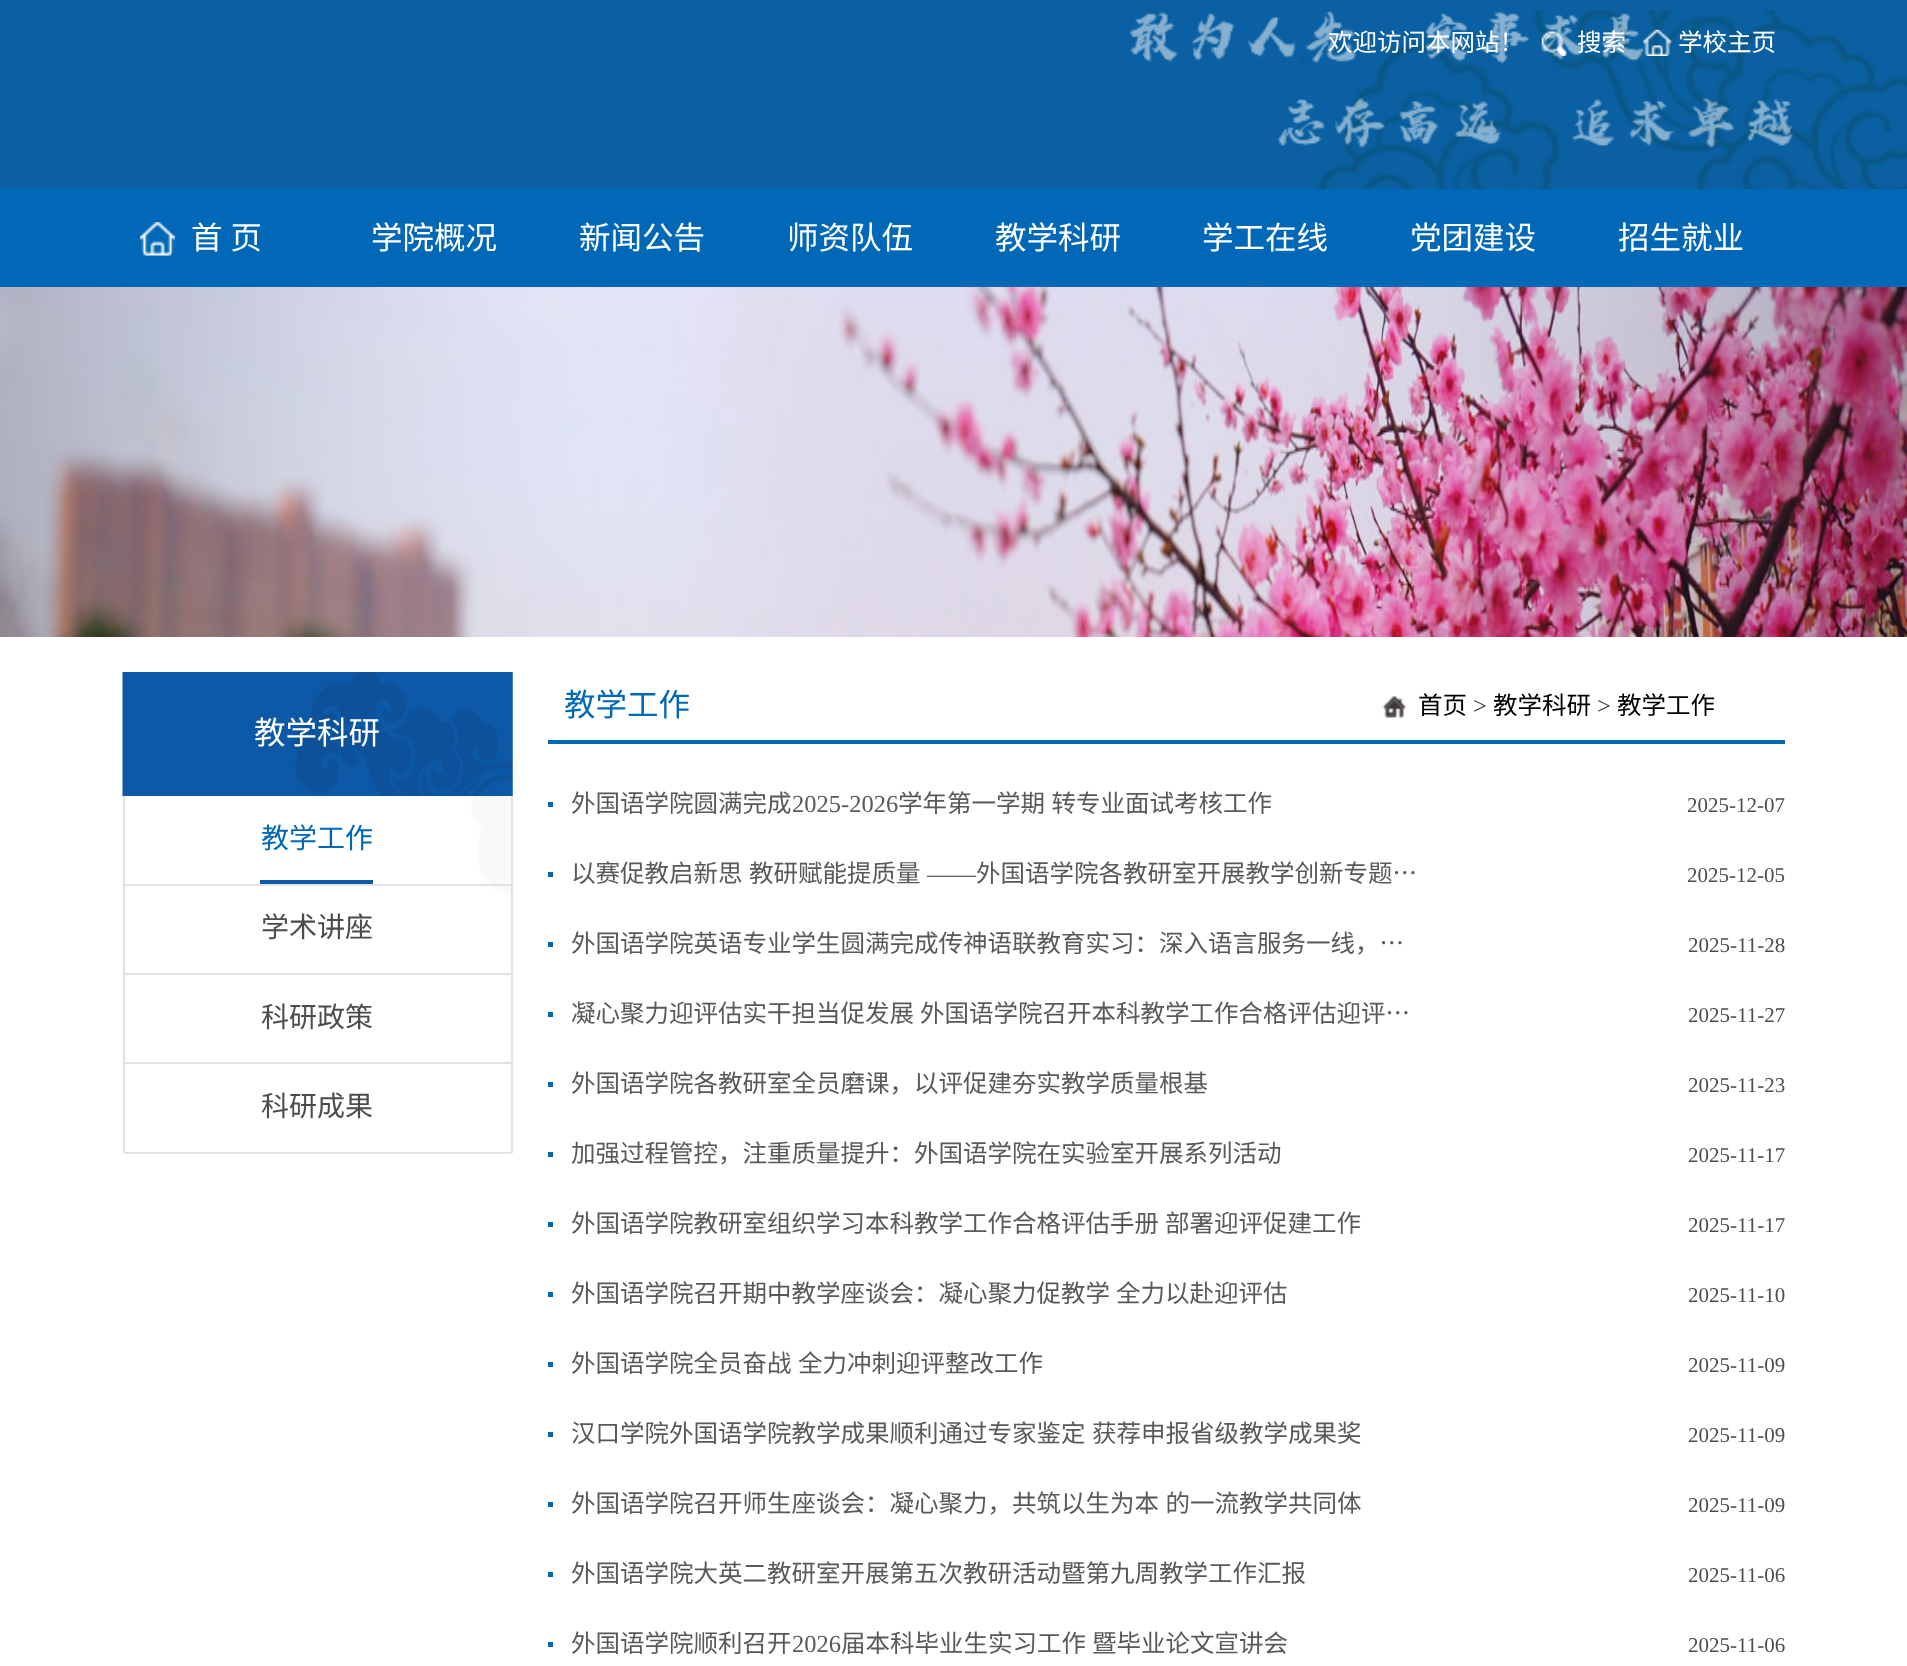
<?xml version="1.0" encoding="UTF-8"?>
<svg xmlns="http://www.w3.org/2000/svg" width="1907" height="1666">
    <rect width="100%" height="100%" fill="#FFFFFF"/>
    <image x="0" y="0" width="1907" height="189" href="img_01.png"/>
    <image x="1130" y="10" width="664" height="138" href="img_02.png"/>
    <text x="1328" y="51" font-family="Noto Sans CJK SC" font-size="24.5" fill="#FFFFFF">欢迎访问本网站！</text>
    <image x="1541" y="31" width="26" height="25" href="img_03.png"/>
    <text x="1577" y="51" font-family="Noto Sans CJK SC" font-size="24.5" fill="#FFFFFF">搜索</text>
    <image x="1643" y="29" width="29" height="27" href="img_04.png"/>
    <text x="1678" y="51" font-family="Noto Sans CJK SC" font-size="24.5" fill="#FFFFFF">学校主页</text>
    <rect x="0" y="189" width="1907" height="98" fill="#0068B7"/>
    <image x="140" y="222" width="35" height="34" href="img_05.png"/>
    <text x="191" y="249" word-spacing="1" font-family="Noto Sans CJK SC" font-size="31.5" fill="#FFFFFF">首 页</text>
    <text x="371" y="249" font-family="Noto Sans CJK SC" font-size="31.5" fill="#FFFFFF">学院概况</text>
    <text x="579" y="249" font-family="Noto Sans CJK SC" font-size="31.5" fill="#FFFFFF">新闻公告</text>
    <text x="787" y="249" font-family="Noto Sans CJK SC" font-size="31.5" fill="#FFFFFF">师资队伍</text>
    <text x="995" y="249" font-family="Noto Sans CJK SC" font-size="31.5" fill="#FFFFFF">教学科研</text>
    <text x="1202" y="249" font-family="Noto Sans CJK SC" font-size="31.5" fill="#FFFFFF">学工在线</text>
    <text x="1410" y="249" font-family="Noto Sans CJK SC" font-size="31.5" fill="#FFFFFF">党团建设</text>
    <text x="1618" y="249" font-family="Noto Sans CJK SC" font-size="31.5" fill="#FFFFFF">招生就业</text>
    <image x="0" y="287" width="1907" height="350" href="img_06.png"/>
    <image x="122" y="672" width="391" height="125" href="img_07.png"/>
    <text x="254" y="744" font-family="Noto Sans CJK SC" font-size="31.5" fill="#FFFFFF">教学科研</text>
    <rect x="125" y="796" width="386" height="1" fill="#FFFFFF"/>
    <image x="471" y="796" width="40" height="98" href="img_08.png"/>
    <rect x="511" y="796" width="2" height="357" fill="#E2E2E2"/>
    <rect x="123" y="796" width="2" height="357" fill="#E2E2E2"/>
    <rect x="260" y="880" width="113" height="4" fill="#0D59A7"/>
    <rect x="124" y="884" width="387" height="2" fill="#E2E2E2"/>
    <text x="261" y="848" font-family="Noto Sans CJK SC" font-size="28" fill="#0068B7">教学工作</text>
    <rect x="124" y="973" width="387" height="2" fill="#E2E2E2"/>
    <text x="261" y="937" font-family="Noto Sans CJK SC" font-size="28" fill="#4C4C4C">学术讲座</text>
    <rect x="124" y="1062" width="387" height="2" fill="#E2E2E2"/>
    <text x="261" y="1027" font-family="Noto Sans CJK SC" font-size="28" fill="#4C4C4C">科研政策</text>
    <rect x="124" y="1152" width="387" height="2" fill="#E2E2E2"/>
    <text x="261" y="1116" font-family="Noto Sans CJK SC" font-size="28" fill="#4C4C4C">科研成果</text>
    <rect x="548" y="740" width="1237" height="4" fill="#0068B7"/>
    <text x="564" y="716" font-family="Noto Sans CJK SC" font-size="31.5" fill="#0068B7">教学工作</text>
    <image x="1382" y="696" width="24" height="22" href="img_09.png"/>
    <text x="1418" y="714" font-family="Noto Sans CJK SC" font-size="24.5" fill="#000000">首页</text>
    <text x="1473" y="714" font-family="Liberation Serif" font-size="24.5" fill="#3E3A39">&gt;</text>
    <text x="1493" y="714" font-family="Noto Sans CJK SC" font-size="24.5" fill="#000000">教学科研</text>
    <text x="1597" y="714" font-family="Liberation Serif" font-size="24.5" fill="#3E3A39">&gt;</text>
    <text x="1617" y="714" font-family="Noto Sans CJK SC" font-size="24.5" fill="#000000">教学工作</text>
    <rect x="548" y="802" width="5" height="5" fill="#0068B7"/>
    <text x="571" y="812" font-family="Noto Sans CJK SC" font-size="24.5" fill="#595959">外国语学院圆满完成</text>
    <text x="792" y="812" font-family="Liberation Serif" font-size="24.5" fill="#595959">2025-2026</text>
    <text x="898" y="812" word-spacing="1" font-family="Noto Sans CJK SC" font-size="24.5" fill="#595959">学年第一学期 转专业面试考核工作</text>
    <text x="1687" y="812" font-family="Liberation Serif" font-size="21" fill="#4C4C4C">2025-12-07</text>
    <rect x="548" y="872" width="5" height="5" fill="#0068B7"/>
    <text x="571" y="882" word-spacing="1" font-family="Noto Sans CJK SC" font-size="24.5" fill="#595959">以赛促教启新思 教研赋能提质量</text>
    <text x="927" y="882" font-family="Liberation Serif" font-size="24.5" fill="#595959">——</text>
    <text x="976" y="882" font-family="Noto Sans CJK SC" font-size="24.5" fill="#595959">外国语学院各教研室开展教学创新专题…</text>
    <text x="1687" y="882" font-family="Liberation Serif" font-size="21" fill="#4C4C4C">2025-12-05</text>
    <rect x="548" y="942" width="5" height="5" fill="#0068B7"/>
    <text x="571" y="952" font-family="Noto Sans CJK SC" font-size="24.5" fill="#595959">外国语学院英语专业学生圆满完成传神语联教育实习：深入语言服务一线，…</text>
    <text x="1688" y="952" font-family="Liberation Serif" font-size="21" fill="#4C4C4C">2025-11-28</text>
    <rect x="548" y="1012" width="5" height="5" fill="#0068B7"/>
    <text x="571" y="1022" font-family="Noto Sans CJK SC" font-size="24.5" fill="#595959">凝心聚力迎评估实干担当促发展</text>
    <text x="920" y="1022" font-family="Noto Sans CJK SC" font-size="24.5" fill="#595959">外国语学院召开本科教学工作合格评估迎评…</text>
    <text x="1688" y="1022" font-family="Liberation Serif" font-size="21" fill="#4C4C4C">2025-11-27</text>
    <rect x="548" y="1082" width="5" height="5" fill="#0068B7"/>
    <text x="571" y="1092" font-family="Noto Sans CJK SC" font-size="24.5" fill="#595959">外国语学院各教研室全员磨课，以评促建夯实教学质量根基</text>
    <text x="1688" y="1092" font-family="Liberation Serif" font-size="21" fill="#4C4C4C">2025-11-23</text>
    <rect x="548" y="1152" width="5" height="5" fill="#0068B7"/>
    <text x="571" y="1162" font-family="Noto Sans CJK SC" font-size="24.5" fill="#595959">加强过程管控，注重质量提升：外国语学院在实验室开展系列活动</text>
    <text x="1688" y="1162" font-family="Liberation Serif" font-size="21" fill="#4C4C4C">2025-11-17</text>
    <rect x="548" y="1222" width="5" height="5" fill="#0068B7"/>
    <text x="571" y="1232" font-family="Noto Sans CJK SC" font-size="24.5" fill="#595959">外国语学院教研室组织学习本科教学工作合格评估手册</text>
    <text x="1165" y="1232" font-family="Noto Sans CJK SC" font-size="24.5" fill="#595959">部署迎评促建工作</text>
    <text x="1688" y="1232" font-family="Liberation Serif" font-size="21" fill="#4C4C4C">2025-11-17</text>
    <rect x="548" y="1292" width="5" height="5" fill="#0068B7"/>
    <text x="571" y="1302" font-family="Noto Sans CJK SC" font-size="24.5" fill="#595959">外国语学院召开期中教学座谈会：凝心聚力促教学</text>
    <text x="1116" y="1302" font-family="Noto Sans CJK SC" font-size="24.5" fill="#595959">全力以赴迎评估</text>
    <text x="1688" y="1302" font-family="Liberation Serif" font-size="21" fill="#4C4C4C">2025-11-10</text>
    <rect x="548" y="1362" width="5" height="5" fill="#0068B7"/>
    <text x="571" y="1372" word-spacing="1" font-family="Noto Sans CJK SC" font-size="24.5" fill="#595959">外国语学院全员奋战 全力冲刺迎评整改工作</text>
    <text x="1688" y="1372" font-family="Liberation Serif" font-size="21" fill="#4C4C4C">2025-11-09</text>
    <rect x="548" y="1432" width="5" height="5" fill="#0068B7"/>
    <text x="571" y="1442" word-spacing="1" font-family="Noto Sans CJK SC" font-size="24.5" fill="#595959">汉口学院外国语学院教学成果顺利通过专家鉴定 获荐申报省级教学成果奖</text>
    <text x="1688" y="1442" font-family="Liberation Serif" font-size="21" fill="#4C4C4C">2025-11-09</text>
    <rect x="548" y="1502" width="5" height="5" fill="#0068B7"/>
    <text x="571" y="1512" word-spacing="1" font-family="Noto Sans CJK SC" font-size="24.5" fill="#595959">外国语学院召开师生座谈会：凝心聚力，共筑以生为本 的一流教学共同体</text>
    <text x="1688" y="1512" font-family="Liberation Serif" font-size="21" fill="#4C4C4C">2025-11-09</text>
    <rect x="548" y="1572" width="5" height="5" fill="#0068B7"/>
    <text x="571" y="1582" font-family="Noto Sans CJK SC" font-size="24.5" fill="#595959">外国语学院大英二教研室开展第五次教研活动暨第九周教学工作汇报</text>
    <text x="1688" y="1582" font-family="Liberation Serif" font-size="21" fill="#4C4C4C">2025-11-06</text>
    <rect x="548" y="1642" width="5" height="5" fill="#0068B7"/>
    <text x="571" y="1652" font-family="Noto Sans CJK SC" font-size="24.5" fill="#595959">外国语学院顺利召开</text>
    <text x="792" y="1652" font-family="Liberation Serif" font-size="24.5" fill="#595959">2026</text>
    <text x="841" y="1652" font-family="Noto Sans CJK SC" font-size="24.5" fill="#595959">届本科毕业生实习工作</text>
    <text x="1092" y="1652" font-family="Noto Sans CJK SC" font-size="24.5" fill="#595959">暨毕业论文宣讲会</text>
    <text x="1688" y="1652" font-family="Liberation Serif" font-size="21" fill="#4C4C4C">2025-11-06</text>
</svg>
